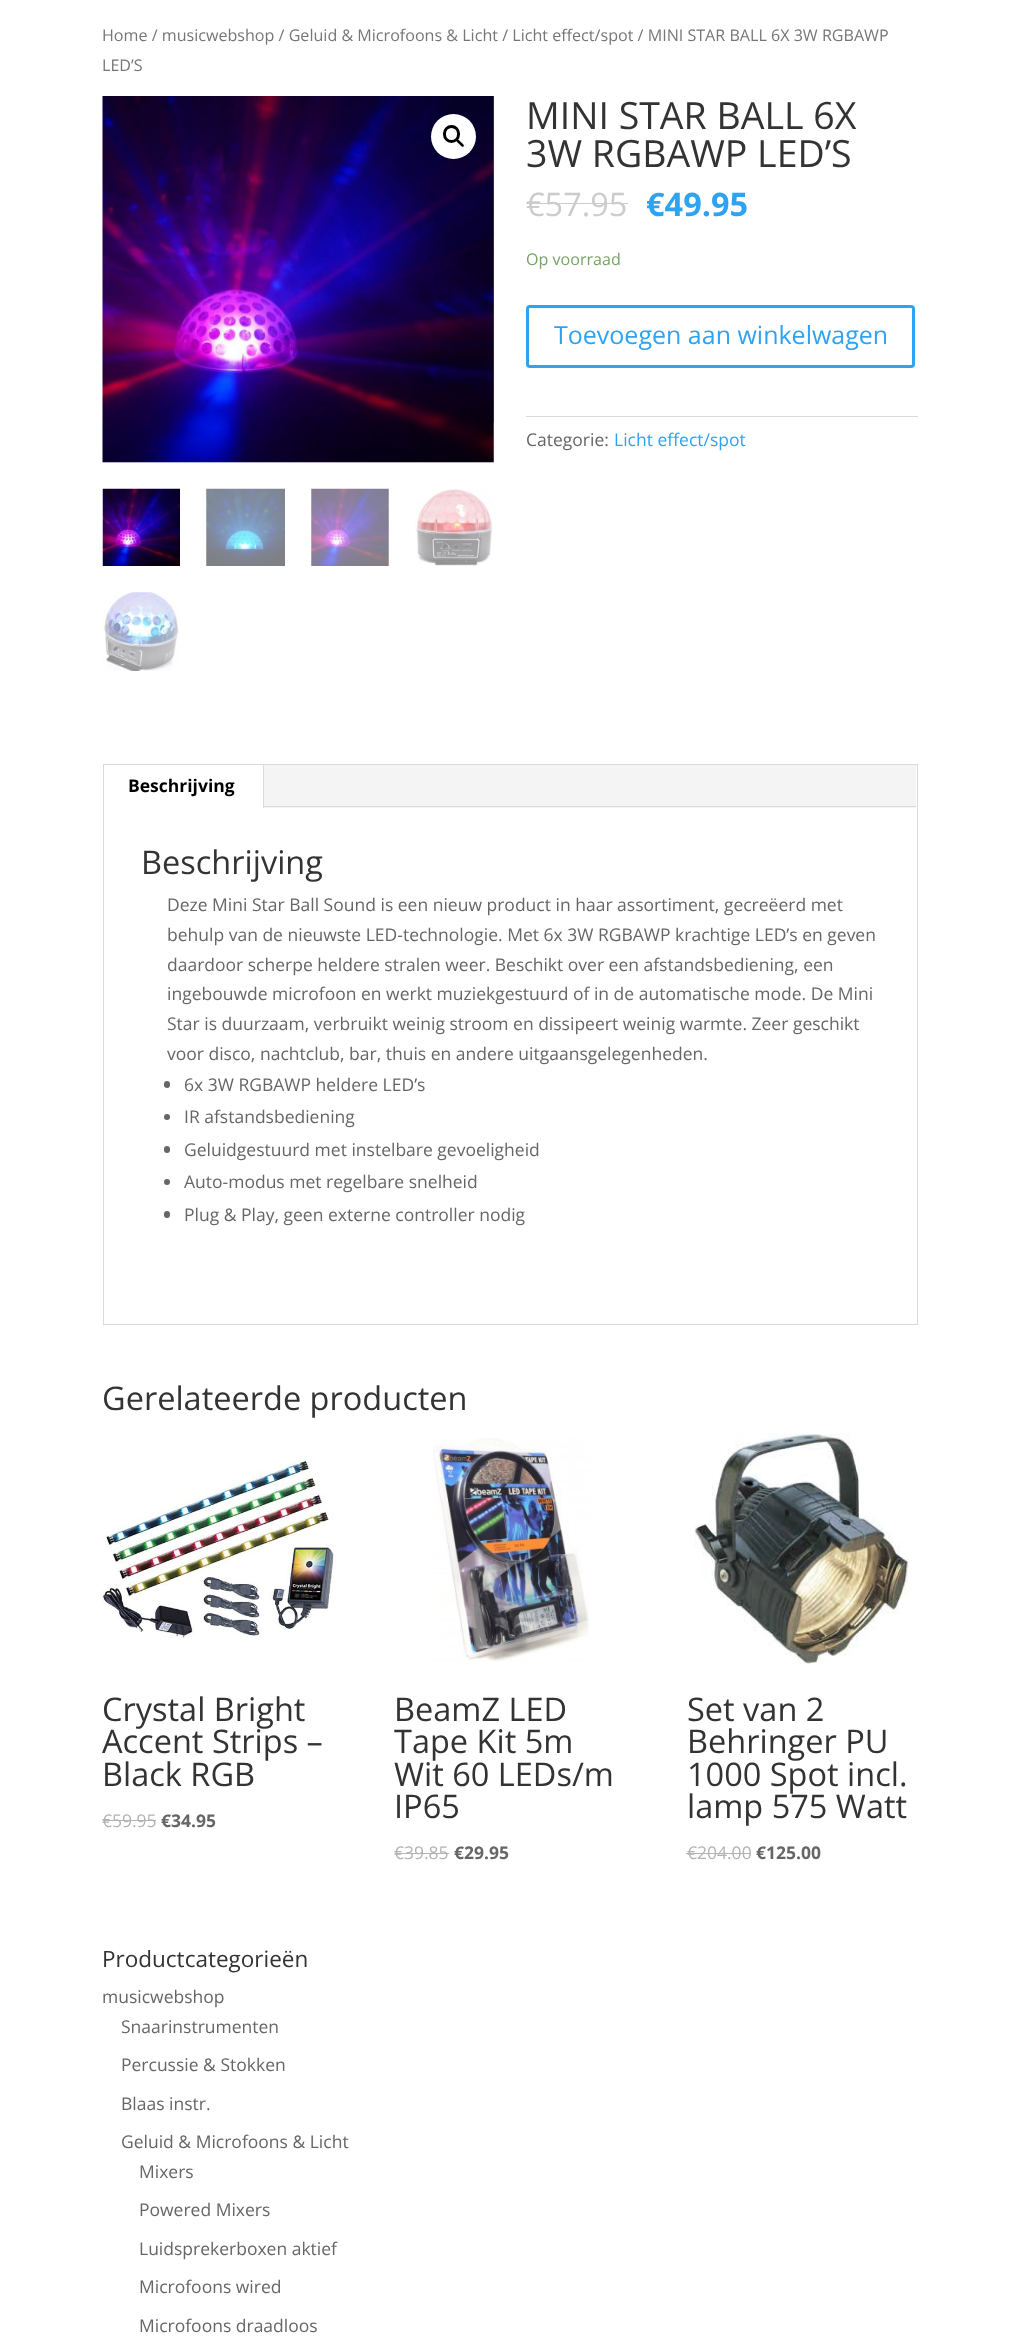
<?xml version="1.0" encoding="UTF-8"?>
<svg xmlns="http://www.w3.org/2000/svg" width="1019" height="2343">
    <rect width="100%" height="100%" fill="#FFFFFF"/>
    <text font-family="Open Sans" font-size="16.1" fill="#767676">
        <tspan x="102" y="41">Home / musicwebshop / Geluid &amp; Microfoons &amp; Licht / Licht effect/spot / MINI STAR BALL 6X 3W RGBAWP</tspan>
        <tspan x="102" y="71">LED’S</tspan>
    </text>
    <image x="493" y="96" width="1" height="327" href="img_02.png"/>
    <image x="102" y="96" width="392" height="367" href="img_01.png"/>
    <circle cx="453.5" cy="136.5" r="22.5" fill="#FFFFFF"/>
    <rect x="444.5" y="126.5" width="14" height="15" rx="7" fill="none" stroke="#000000" stroke-width="3"/>
    <path d="M 456.5 139.5 C 458 138 460 141.5 461 142 C 461.5 143 465 145 463.5 146.5 C 462 148 460 144.5 459 144 C 458.5 143 455 141 456.5 139.5 Z" fill="#000000"/>
    <image x="102" y="488" width="78" height="78" href="img_03.png"/>
    <image x="206" y="488" width="79" height="78" href="img_04.png"/>
    <image x="311" y="488" width="78" height="78" href="img_05.png"/>
    <image x="415" y="489" width="78" height="77" href="img_06.png"/>
    <image x="103" y="592" width="76" height="79" href="img_07.png"/>
    <text font-family="Open Sans" font-size="37.5" fill="#333333">
        <tspan x="526" y="129">MINI STAR BALL 6X</tspan>
        <tspan x="526" y="167">3W RGBAWP LED’S</tspan>
    </text>
    <text x="526" y="216" font-family="Open Sans" font-size="32.5" fill="#CCCCCC">€57.95</text>
    <rect x="526" y="203" width="102" height="1" fill="#CCCCCC"/>
    <text x="646" y="216" font-family="Open Sans" font-size="32.5" font-weight="700" fill="#2EA3F2">€49.95</text>
    <text x="526" y="265" font-family="Open Sans" font-size="16.1" fill="#77A464">Op voorraad</text>
    <rect x="527.5" y="306.5" width="386" height="60" rx="2.5" fill="none" stroke="#2EA3F2" stroke-width="3"/>
    <text x="554" y="344" font-family="Open Sans" font-size="25" fill="#2EA3F2">Toevoegen aan winkelwagen</text>
    <rect x="526" y="416" width="392" height="1" fill="#DADADA"/>
    <text x="526" y="446" font-family="Open Sans" font-size="17.5" fill="#666666">Categorie:</text>
    <text x="614" y="446" font-family="Open Sans" font-size="17.5" fill="#2EA3F2">Licht effect/spot</text>
    <rect x="103.5" y="764.5" width="814" height="560" fill="none" stroke="#D9D9D9"/>
    <rect x="264" y="765" width="652" height="43" fill="#F4F4F4"/>
    <rect x="263" y="765" width="1" height="43" fill="#D9D9D9"/>
    <text x="128" y="792" font-family="Open Sans" font-size="17.5" font-weight="700" fill="#000000">Beschrijving</text>
    <rect x="264" y="806" width="652" height="1" fill="#D9D9D9"/>
    <text x="141" y="874" font-family="Open Sans" font-size="32.5" fill="#333333">Beschrijving</text>
    <text font-family="Open Sans" font-size="17.5" fill="#666666">
        <tspan x="167" y="911">Deze Mini Star Ball Sound is een nieuw product in haar assortiment, gecreëerd met</tspan>
        <tspan x="167" y="941">behulp van de nieuwste LED-technologie. Met 6x 3W RGBAWP krachtige LED’s en geven</tspan>
        <tspan x="167" y="971">daardoor scherpe heldere stralen weer. Beschikt over een afstandsbediening, een</tspan>
        <tspan x="167" y="1000">ingebouwde microfoon en werkt muziekgestuurd of in de automatische mode. De Mini</tspan>
        <tspan x="167" y="1030">Star is duurzaam, verbruikt weinig stroom en dissipeert weinig warmte. Zeer geschikt</tspan>
        <tspan x="167" y="1060">voor disco, nachtclub, bar, thuis en andere uitgaansgelegenheden.</tspan>
    </text>
    <rect x="164" y="1081" width="6" height="7" rx="3" fill="#666666"/>
    <text x="184" y="1091" font-family="Open Sans" font-size="17.5" fill="#666666">6x 3W RGBAWP heldere LED’s</text>
    <circle cx="167" cy="1117" r="3" fill="#666666"/>
    <text x="184" y="1123" font-family="Open Sans" font-size="17.5" fill="#666666">IR afstandsbediening</text>
    <rect x="164" y="1146" width="6" height="7" rx="3" fill="#666666"/>
    <text x="184" y="1156" font-family="Open Sans" font-size="17.5" fill="#666666">Geluidgestuurd met instelbare gevoeligheid</text>
    <circle cx="167" cy="1182" r="3" fill="#666666"/>
    <text x="184" y="1188" font-family="Open Sans" font-size="17.5" fill="#666666">Auto-modus met regelbare snelheid</text>
    <rect x="164" y="1211" width="6" height="7" rx="3" fill="#666666"/>
    <text x="184" y="1221" font-family="Open Sans" font-size="17.5" fill="#666666">Plug &amp; Play, geen externe controller nodig</text>
    <text x="102" y="1410" font-family="Open Sans" font-size="32.5" fill="#333333">Gerelateerde producten</text>
    <image x="102" y="1460" width="232" height="178" href="img_08.png"/>
    <text font-family="Open Sans" font-size="32.5" fill="#333333">
        <tspan x="102" y="1721">Crystal Bright</tspan>
        <tspan x="102" y="1753">Accent Strips –</tspan>
        <tspan x="102" y="1786">Black RGB</tspan>
    </text>
    <text x="102" y="1827" font-family="Open Sans" font-size="17.5" fill="#B3B3B3">€59.95</text>
    <rect x="103" y="1820" width="53" height="1" fill="#B3B3B3"/>
    <text x="161" y="1827" font-family="Open Sans" font-size="17.5" font-weight="700" fill="#666666">€34.95</text>
    <image x="433" y="1438" width="157" height="224" href="img_09.png"/>
    <text font-family="Open Sans" font-size="32.5" fill="#333333">
        <tspan x="394" y="1721">BeamZ LED</tspan>
        <tspan x="394" y="1753">Tape Kit 5m</tspan>
        <tspan x="394" y="1786">Wit 60 LEDs/m</tspan>
        <tspan x="394" y="1818">IP65</tspan>
    </text>
    <text x="394" y="1859" font-family="Open Sans" font-size="17.5" fill="#B3B3B3">€39.85</text>
    <rect x="395" y="1853" width="54" height="1" fill="#B3B3B3"/>
    <text x="454" y="1859" font-family="Open Sans" font-size="17.5" font-weight="700" fill="#666666">€29.95</text>
    <image x="694" y="1433" width="215" height="231" href="img_10.png"/>
    <text font-family="Open Sans" font-size="32.5" fill="#333333">
        <tspan x="687" y="1721">Set van 2</tspan>
        <tspan x="687" y="1753">Behringer PU</tspan>
        <tspan x="687" y="1786">1000 Spot incl.</tspan>
        <tspan x="687" y="1818">lamp 575 Watt</tspan>
    </text>
    <text x="687" y="1859" font-family="Open Sans" font-size="17.5" fill="#B3B3B3">€204.00</text>
    <rect x="686" y="1853" width="65" height="1" fill="#B3B3B3"/>
    <text x="756" y="1859" font-family="Open Sans" font-size="17.5" font-weight="700" fill="#666666">€125.00</text>
    <text x="102" y="1967" font-family="Open Sans" font-size="22.5" fill="#333333">Productcategorieën</text>
    <text x="102" y="2003" font-family="Open Sans" font-size="17.5" fill="#666666">musicwebshop</text>
    <text x="121" y="2033" font-family="Open Sans" font-size="17.5" fill="#666666">Snaarinstrumenten</text>
    <text x="121" y="2071" font-family="Open Sans" font-size="17.5" fill="#666666">Percussie &amp; Stokken</text>
    <text x="121" y="2110" font-family="Open Sans" font-size="17.5" fill="#666666">Blaas instr.</text>
    <text x="121" y="2148" font-family="Open Sans" font-size="17.5" fill="#666666">Geluid &amp; Microfoons &amp; Licht</text>
    <text x="139" y="2178" font-family="Open Sans" font-size="17.5" fill="#666666">Mixers</text>
    <text x="139" y="2216" font-family="Open Sans" font-size="17.5" fill="#666666">Powered Mixers</text>
    <text x="139" y="2255" font-family="Open Sans" font-size="17.5" fill="#666666">Luidsprekerboxen aktief</text>
    <text x="139" y="2293" font-family="Open Sans" font-size="17.5" fill="#666666">Microfoons wired</text>
    <text x="139" y="2332" font-family="Open Sans" font-size="17.5" fill="#666666">Microfoons draadloos</text>
</svg>
